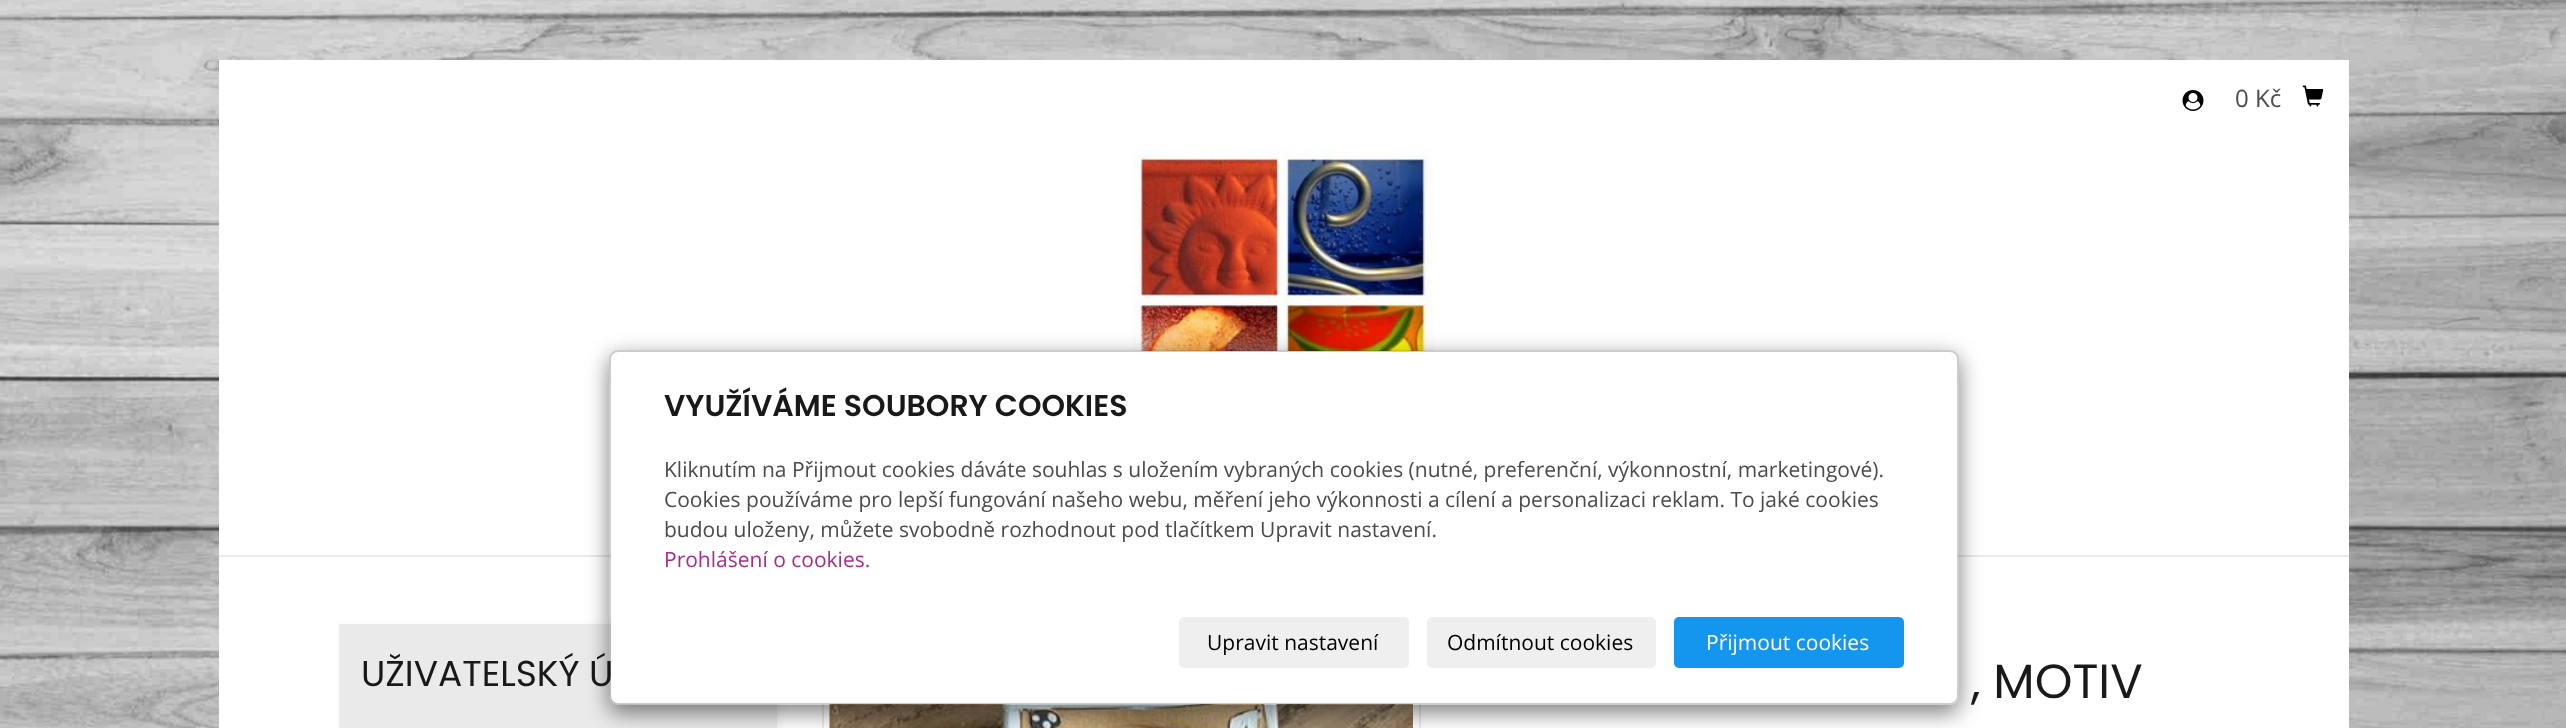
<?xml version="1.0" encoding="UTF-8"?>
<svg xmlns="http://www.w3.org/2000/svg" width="2566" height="728">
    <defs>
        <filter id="blur1" x="-50%" y="-200%" width="200%" height="500%"><feGaussianBlur stdDeviation="4"/></filter>
        <clipPath id="clip1"><path d="M 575 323 H 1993 V 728 H 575 Z M 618 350 H 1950 C 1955 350 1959 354 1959 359 V 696 C 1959 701 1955 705 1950 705 H 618 C 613 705 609 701 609 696 V 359 C 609 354 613 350 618 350 Z" clip-rule="evenodd"/></clipPath>
        <filter id="blur2" x="-50%" y="-200%" width="200%" height="500%"><feGaussianBlur stdDeviation="11"/></filter>
    </defs>
    <rect width="100%" height="100%" fill="#FFFFFF"/>
    <image x="0" y="0" width="2566" height="728" href="img_01.png"/>
    <rect x="219" y="60" width="2130" height="495" fill="#FFFFFF"/>
    <image x="2182" y="90" width="22" height="21" href="img_02.png"/>
    <text x="2235" y="107" font-family="Open Sans" font-size="24" fill="#4B4B4B">0 Kč</text>
    <image x="2302" y="85" width="22" height="22" href="img_03.png"/>
    <rect x="219" y="555" width="2130" height="2" fill="#EAEAEA"/>
    <image x="1132" y="150" width="302" height="201" href="img_04.png"/>
    <rect x="219" y="557" width="2130" height="171" fill="#FFFFFF"/>
    <rect x="341" y="626" width="438" height="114" fill="#000000" fill-opacity="0.05" filter="url(#blur1)"/>
    <rect x="339" y="624" width="438" height="104" fill="#EAEAEA"/>
    <rect x="823" y="625" width="597" height="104" fill="none" stroke="#EAEAEA" stroke-width="2"/>
    <image x="829" y="704" width="584" height="24" href="img_05.png"/>
    <g clip-path="url(#clip1)">
        <rect x="609" y="357" width="1350" height="356" rx="9" fill="#000000" fill-opacity="0.5" filter="url(#blur2)"/>
    </g>
    <rect x="611" y="351" width="1347" height="353" rx="8" fill="#FFFFFF"/>
    <text x="361" y="686" font-family="Poppins" font-size="36" fill="#191919">UŽIVATELSKÝ Ú</text>
    <rect x="610" y="351" width="1348" height="353" rx="8" fill="none" stroke="#000000" stroke-opacity="0.2" stroke-width="2"/>
    <text x="664" y="416" font-family="Poppins" font-size="30" font-weight="600" fill="#191919">VYUŽÍVÁME SOUBORY COOKIES</text>
    <text font-family="Open Sans" font-size="21" fill="#4B4B4B">
        <tspan x="664" y="477">Kliknutím na Přijmout cookies dáváte souhlas s uložením vybraných cookies (nutné, preferenční, výkonnostní, marketingové).</tspan>
        <tspan x="664" y="507">Cookies používáme pro lepší fungování našeho webu, měření jeho výkonnosti a cílení a personalizaci reklam. To jaké cookies</tspan>
        <tspan x="664" y="537">budou uloženy, můžete svobodně rozhodnout pod tlačítkem Upravit nastavení.</tspan>
    </text>
    <text x="664" y="567" font-family="Open Sans" font-size="21" fill="#AA2B8D">Prohlášení o cookies.</text>
    <rect x="1179" y="617" width="230" height="51" rx="5" fill="#EFEFEF"/>
    <text x="1207" y="650" font-family="Open Sans" font-size="21" fill="#000000">Upravit nastavení</text>
    <rect x="1427" y="617" width="229" height="51" rx="5" fill="#EFEFEF"/>
    <text x="1447" y="650" font-family="Open Sans" font-size="21" fill="#000000">Odmítnout cookies</text>
    <rect x="1675" y="618" width="228" height="49" rx="4" fill="#1496EE" stroke="#1496EE" stroke-width="2"/>
    <text x="1706" y="650" font-family="Open Sans" font-size="21" fill="#FFFFFF">Přijmout cookies</text>
    <text x="1971" y="698" font-family="Poppins" font-size="48" fill="#191919">, MOTIV</text>
</svg>
